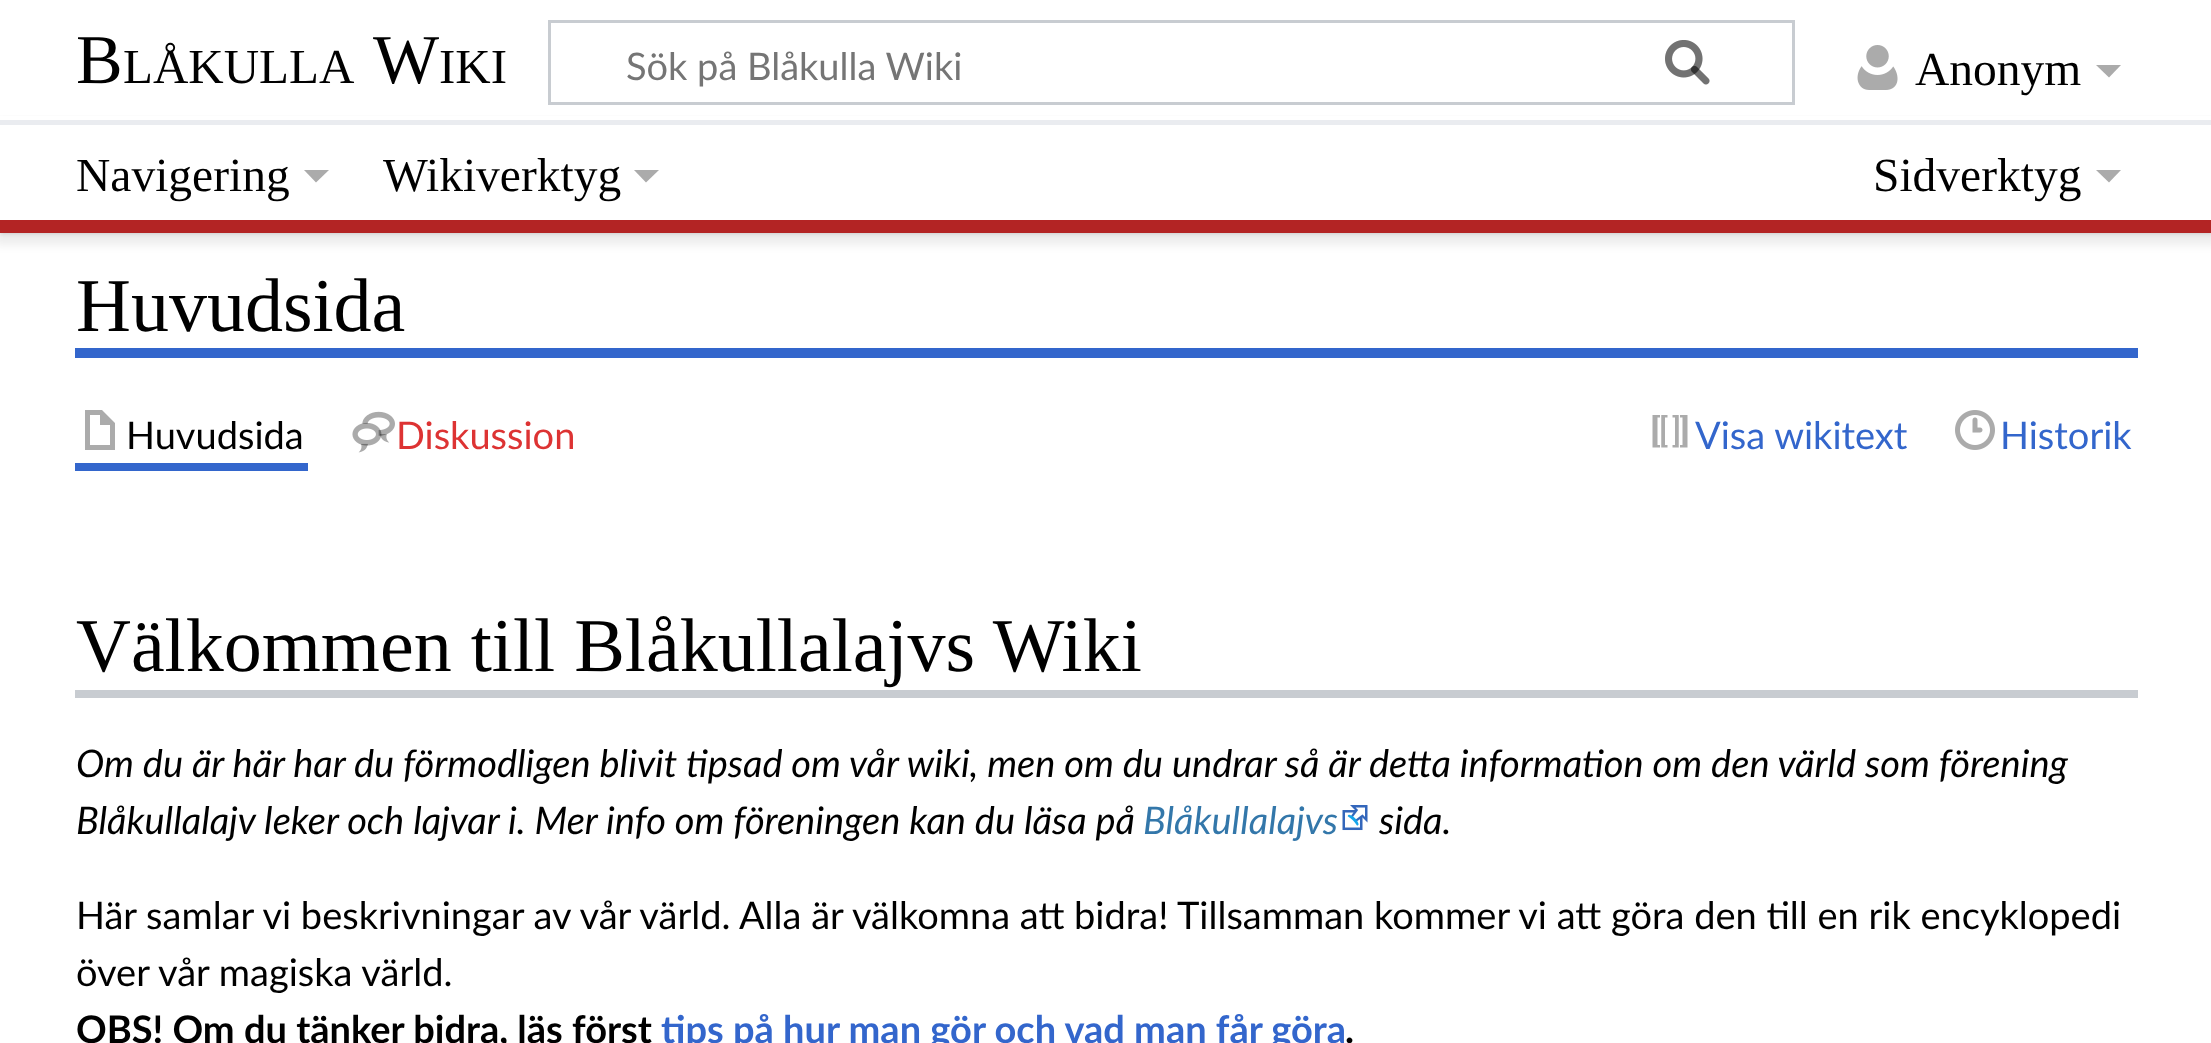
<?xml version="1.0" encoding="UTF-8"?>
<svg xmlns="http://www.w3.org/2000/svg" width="2211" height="1043">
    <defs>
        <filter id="blur1" x="-50%" y="-200%" width="200%" height="500%"><feGaussianBlur stdDeviation="2.5"/></filter>
        <filter id="blur2" x="-50%" y="-200%" width="200%" height="500%"><feGaussianBlur stdDeviation="4"/></filter>
    </defs>
    <rect width="100%" height="100%" fill="#FFFFFF"/>
    <rect x="0" y="120" width="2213" height="113" fill="#000000" fill-opacity="0.2" filter="url(#blur1)"/>
    <rect x="-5" y="123" width="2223" height="122" fill="#000000" fill-opacity="0.07" filter="url(#blur2)"/>
    <rect x="0" y="116" width="2211" height="4" fill="#FFFFFF"/>
    <text x="76" y="83" font-family="Liberation Serif" font-size="70" fill="#000000">B</text>
    <text x="123" y="83" font-family="Liberation Serif" font-size="49" fill="#000000">LÅKULLA</text>
    <text x="373" y="83" font-family="Liberation Serif" font-size="70" fill="#000000">W</text>
    <text x="439" y="83" font-family="Liberation Serif" font-size="49" fill="#000000">IKI</text>
    <rect x="549.5" y="21.5" width="1244" height="82" fill="none" stroke="#C8CCD1" stroke-width="3"/>
    <image x="1665" y="40" width="45" height="45" href="img_01.png"/>
    <text x="626" y="80" font-family="Lato" font-size="38" fill="#757575">Sök på Blåkulla Wiki</text>
    <image x="1665" y="40" width="45" height="45" href="img_02.png"/>
    <image x="1857" y="45" width="41" height="45" href="img_03.png"/>
    <text x="1915" y="85" font-family="Liberation Serif" font-size="47.5" fill="#000000">Anonym</text>
    <path d="M 2121 65 L 2109 77.5 L 2096 65 Z" fill="#ABABAB"/>
    <rect x="0" y="125" width="2211" height="95" fill="#FFFFFF"/>
    <rect x="0" y="120" width="2211" height="5" fill="#EAECF0"/>
    <rect x="0" y="220" width="2211" height="13" fill="#B32424"/>
    <text x="76" y="191" font-family="Liberation Serif" font-size="47.5" fill="#000000">Navigering</text>
    <path d="M 329 170 L 316 182.5 L 304 170 Z" fill="#ABABAB"/>
    <text x="383" y="191" font-family="Liberation Serif" font-size="47.5" fill="#000000">Wikiverktyg</text>
    <path d="M 659 170 L 646 182.5 L 634 170 Z" fill="#ABABAB"/>
    <text x="1873" y="191" font-family="Liberation Serif" font-size="47.5" fill="#000000">Sidverktyg</text>
    <path d="M 2121 170 L 2109 182.5 L 2096 170 Z" fill="#ABABAB"/>
    <rect x="75" y="348" width="2063" height="10" fill="#3366CC"/>
    <text x="76" y="331" font-family="Liberation Serif" font-size="76" fill="#000000">Huvudsida</text>
    <rect x="75" y="463" width="233" height="8" fill="#3366CC"/>
    <path d="M 85 410 V 450 H 115 V 423 L 102 410 Z M 90 415 H 100 V 425 H 110 V 445 H 90 Z" fill="#ABABAB"/>
    <text x="126" y="449" font-family="Lato" font-size="38" fill="#000000">Huvudsida</text>
    <image x="352" y="411" width="43" height="42" href="img_04.png"/>
    <text x="396" y="449" font-family="Lato" font-size="38" fill="#DD3333">Diskussion</text>
    <image x="1652" y="415" width="36" height="33" href="img_05.png"/>
    <text x="1695" y="449" font-family="Lato" font-size="38" fill="#3366CC">Visa wikitext</text>
    <image x="1955" y="410" width="40" height="40" href="img_06.png"/>
    <text x="2000" y="449" font-family="Lato" font-size="38" fill="#3366CC">Historik</text>
    <text x="76" y="671" font-family="Liberation Serif" font-size="76" fill="#000000">Välkommen till Blåkullalajvs Wiki</text>
    <rect x="75" y="690" width="2063" height="8" fill="#C8CCD1"/>
    <text font-family="Lato" font-size="38" font-style="italic" fill="#000000">
        <tspan x="76" y="777">Om du är här har du förmodligen blivit tipsad om vår wiki, men om du undrar så är detta information om den värld som förening</tspan>
        <tspan x="76" y="834">Blåkullalajv leker och lajvar i. Mer info om föreningen kan du läsa på</tspan>
    </text>
    <text x="1143" y="834" font-family="Lato" font-size="38" font-style="italic" fill="#3377AA">Blåkullalajvs</text>
    <image x="1342" y="805" width="26" height="26" href="img_07.png"/>
    <text x="1379" y="834" font-family="Lato" font-size="38" font-style="italic" fill="#000000">sida.</text>
    <text font-family="Lato" font-size="38" fill="#000000">
        <tspan x="76" y="929">Här samlar vi beskrivningar av vår värld. Alla är välkomna att bidra! Tillsamman kommer vi att göra den till en rik encyklopedi</tspan>
        <tspan x="76" y="986">över vår magiska värld.</tspan>
    </text>
    <text x="76" y="1043" font-family="Lato" font-size="38" font-weight="700" fill="#000000">OBS! Om du tänker bidra, läs först</text>
    <text x="661" y="1043" font-family="Lato" font-size="38" font-weight="700" fill="#3366CC">tips på hur man gör och vad man får göra</text>
    <text x="1345" y="1043" font-family="Lato" font-size="38" font-weight="700" fill="#000000">.</text>
</svg>
